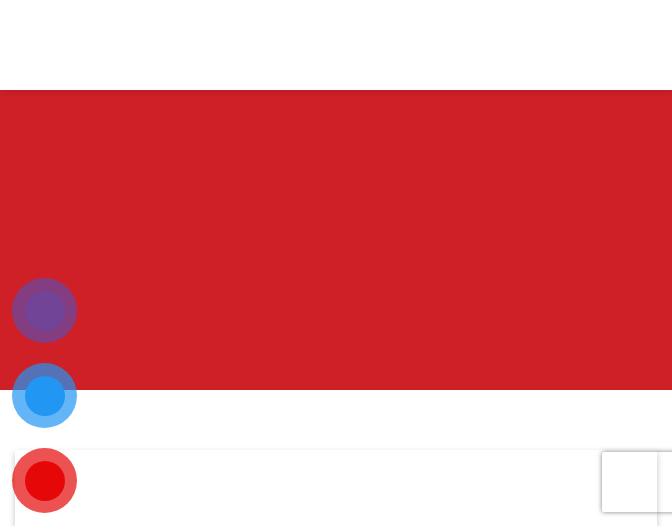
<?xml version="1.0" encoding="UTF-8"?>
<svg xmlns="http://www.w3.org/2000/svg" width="672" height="526">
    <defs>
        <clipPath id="clip1"><rect x="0" y="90" width="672" height="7"/></clipPath>
        <filter id="blur1" x="-50%" y="-200%" width="200%" height="500%"><feGaussianBlur stdDeviation="5"/></filter>
        <clipPath id="clip2"><path d="M 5 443 H 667 V 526 H 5 Z M 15 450 H 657 V 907 H 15 Z" clip-rule="evenodd"/></clipPath>
        <filter id="blur2" x="-50%" y="-200%" width="200%" height="500%"><feGaussianBlur stdDeviation="3"/></filter>
        <clipPath id="clip3"><path d="M 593 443 H 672 V 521 H 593 Z M 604 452 H 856 C 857 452 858 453 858 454 V 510 C 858 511 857 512 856 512 H 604 C 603 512 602 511 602 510 V 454 C 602 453 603 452 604 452 Z" clip-rule="evenodd"/></clipPath>
        <filter id="blur3" x="-50%" y="-200%" width="200%" height="500%"><feGaussianBlur stdDeviation="2.5"/></filter>
    </defs>
    <rect width="100%" height="100%" fill="#FFFFFF"/>
    <rect x="0" y="90" width="672" height="300" fill="#CF2027"/>
    <g clip-path="url(#clip1)">
        <rect x="1" y="1" width="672" height="90" fill="#000000" fill-opacity="0.15" filter="url(#blur1)"/>
    </g>
    <g clip-path="url(#clip2)">
        <rect x="15" y="453" width="642" height="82" fill="#000000" fill-opacity="0.23" filter="url(#blur2)"/>
    </g>
    <circle cx="44.5" cy="310.5" r="32.5" fill="#843D81"/>
    <circle cx="45" cy="311" r="20" fill="#714497"/>
    <circle cx="44.5" cy="395.5" r="32.5" fill="#2196F3" fill-opacity="0.7"/>
    <circle cx="45" cy="396" r="20" fill="#2196F3"/>
    <circle cx="44.5" cy="480.5" r="32.5" fill="#E60808" fill-opacity="0.7"/>
    <circle cx="45" cy="481" r="20" fill="#E60808"/>
    <g clip-path="url(#clip3)">
        <rect x="602" y="452" width="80" height="60" rx="2" fill="#808080" filter="url(#blur3)"/>
    </g>
</svg>
